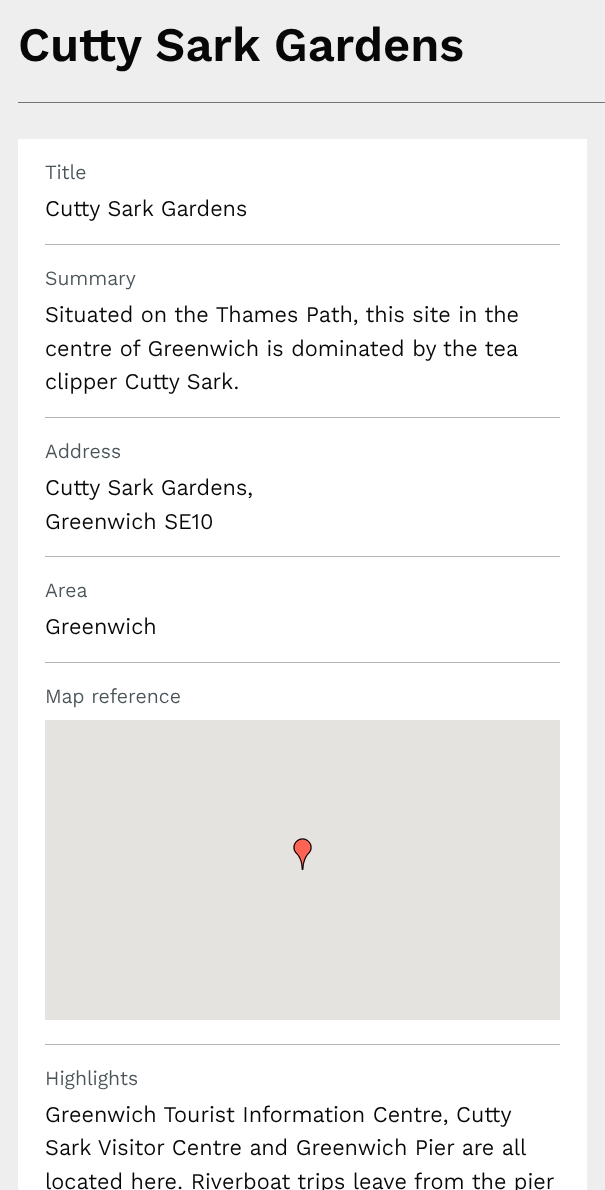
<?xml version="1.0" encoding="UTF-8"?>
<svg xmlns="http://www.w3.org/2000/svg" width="605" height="1190">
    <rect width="100%" height="100%" fill="#EEEEEE"/>
    <text x="18" y="61" font-family="Kantumruy Pro" font-size="48" font-weight="600" fill="#080707">Cutty Sark Gardens</text>
    <rect x="18" y="102" width="587" height="1" fill="#797272"/>
    <rect x="18" y="139" width="569" height="1051" fill="#FFFFFF"/>
    <text x="45" y="179" font-family="Kantumruy Pro" font-size="20.25" fill="#4B5559">Title</text>
    <rect x="45" y="244" width="515" height="1" fill="#B3B3B3"/>
    <text x="45" y="216" font-family="Kantumruy Pro" font-size="22.5" fill="#080707">Cutty Sark Gardens</text>
    <text x="45" y="285" font-family="Kantumruy Pro" font-size="20.25" fill="#4B5559">Summary</text>
    <rect x="45" y="417" width="515" height="1" fill="#B3B3B3"/>
    <text font-family="Kantumruy Pro" font-size="22.5" fill="#080707">
        <tspan x="45" y="322">Situated on the Thames Path, this site in the</tspan>
        <tspan x="45" y="356">centre of Greenwich is dominated by the tea</tspan>
        <tspan x="45" y="389">clipper Cutty Sark.</tspan>
    </text>
    <text x="45" y="458" font-family="Kantumruy Pro" font-size="20.25" fill="#4B5559">Address</text>
    <rect x="45" y="556" width="515" height="1" fill="#B3B3B3"/>
    <text font-family="Kantumruy Pro" font-size="22.5" fill="#080707">
        <tspan x="45" y="495">Cutty Sark Gardens,</tspan>
        <tspan x="45" y="529">Greenwich SE10</tspan>
    </text>
    <text x="45" y="597" font-family="Kantumruy Pro" font-size="20.25" fill="#4B5559">Area</text>
    <rect x="45" y="662" width="515" height="1" fill="#B3B3B3"/>
    <text x="45" y="634" font-family="Kantumruy Pro" font-size="22.5" fill="#080707">Greenwich</text>
    <text x="45" y="703" font-family="Kantumruy Pro" font-size="20.25" fill="#4B5559">Map reference</text>
    <rect x="45" y="1044" width="515" height="1" fill="#B3B3B3"/>
    <rect x="45" y="720" width="515" height="300" fill="#E5E3DF"/>
    <image x="293" y="838" width="19" height="32" href="img_01.png"/>
    <text x="45" y="1085" font-family="Kantumruy Pro" font-size="20.25" fill="#4B5559">Highlights</text>
    <text font-family="Kantumruy Pro" font-size="22.5" fill="#080707">
        <tspan x="45" y="1122">Greenwich Tourist Information Centre, Cutty</tspan>
        <tspan x="45" y="1155">Sark Visitor Centre and Greenwich Pier are all</tspan>
        <tspan x="45" y="1189">located here. Riverboat trips leave from the pier</tspan>
    </text>
</svg>
